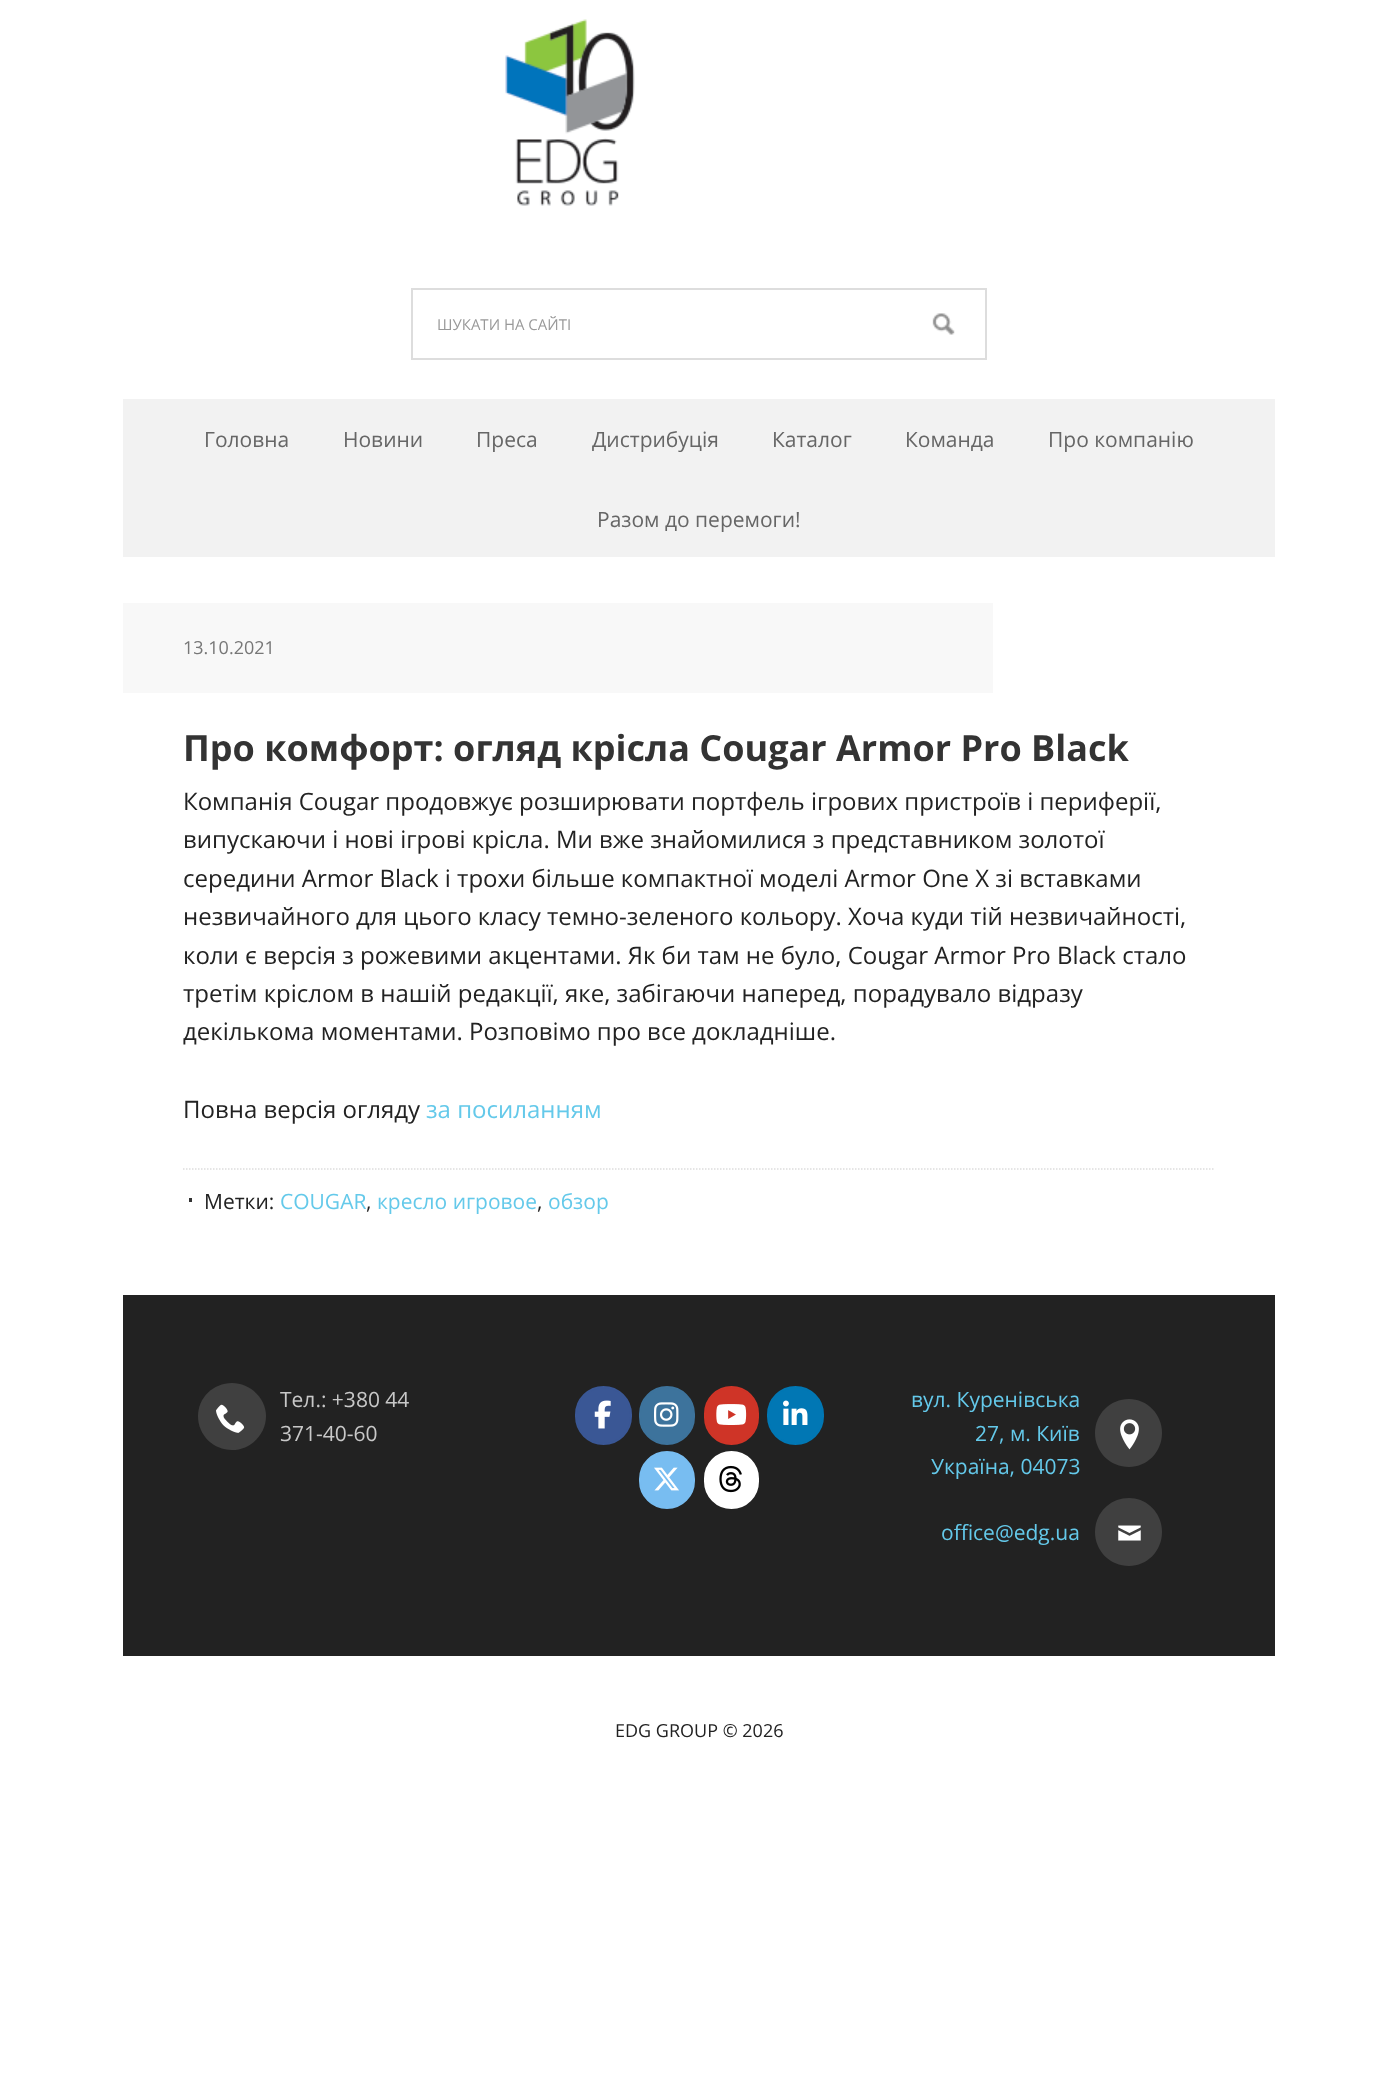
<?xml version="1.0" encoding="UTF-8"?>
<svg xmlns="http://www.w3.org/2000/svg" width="1397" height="2095">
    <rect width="100%" height="100%" fill="#FFFFFF"/>
    <image x="505" y="19" width="130" height="187" href="img_01.png"/>
    <image x="932" y="313" width="23" height="22" href="img_02.png"/>
    <rect x="412" y="289" width="574" height="70" fill="none" stroke="#DDDDDD" stroke-width="2"/>
    <text x="437" y="330" font-family="Open Sans" font-size="15" fill="#999999">ШУКАТИ НА САЙТІ</text>
    <rect x="123" y="399" width="1152" height="158" fill="#F2F2F2"/>
    <text x="204" y="447" font-family="Open Sans" font-size="21" fill="#666666">Головна</text>
    <text x="343" y="447" font-family="Open Sans" font-size="21" fill="#666666">Новини</text>
    <text x="476" y="447" font-family="Open Sans" font-size="21" fill="#666666">Преса</text>
    <text x="592" y="447" font-family="Open Sans" font-size="21" fill="#666666">Дистрибуція</text>
    <text x="772" y="447" font-family="Open Sans" font-size="21" fill="#666666">Каталог</text>
    <text x="905" y="447" font-family="Open Sans" font-size="21" fill="#666666">Команда</text>
    <text x="1048" y="447" font-family="Open Sans" font-size="21" fill="#666666">Про компанію</text>
    <text x="597" y="527" font-family="Open Sans" font-size="21" fill="#666666">Разом до перемоги!</text>
    <rect x="123" y="603" width="870" height="90" fill="#F8F8F8"/>
    <text x="183" y="654" font-family="Open Sans" font-size="18" fill="#777777">13.10.2021</text>
    <text x="183" y="761" font-family="Open Sans" font-size="36" font-weight="700" fill="#333333">Про комфорт: огляд крісла Cougar Armor Pro Black</text>
    <text font-family="Open Sans" font-size="24" fill="#222222">
        <tspan x="183" y="810">Компанія Cougar продовжує розширювати портфель ігрових пристроїв і периферії,</tspan>
        <tspan x="183" y="848">випускаючи і нові ігрові крісла. Ми вже знайомилися з представником золотої</tspan>
        <tspan x="183" y="887">середини Armor Black і трохи більше компактної моделі Armor One X зі вставками</tspan>
        <tspan x="183" y="925">незвичайного для цього класу темно-зеленого кольору. Хоча куди тій незвичайності,</tspan>
        <tspan x="183" y="964">коли є версія з рожевими акцентами. Як би там не було, Cougar Armor Pro Black стало</tspan>
        <tspan x="183" y="1002">третім кріслом в нашій редакції, яке, забігаючи наперед, порадувало відразу</tspan>
        <tspan x="183" y="1040">декількома моментами. Розповімо про все докладніше.</tspan>
    </text>
    <text x="183" y="1118" font-family="Open Sans" font-size="24" fill="#222222">Повна версія огляду</text>
    <text x="426" y="1118" font-family="Open Sans" font-size="24" fill="#64C9EA">за посиланням</text>
    <path d="M 183 1169 H 1215" fill="none" stroke="#DDDDDD" stroke-width="1.5" stroke-dasharray="1.5 1.5"/>
    <text x="204" y="1209" font-family="Open Sans" font-size="21" fill="#222222">Метки:</text>
    <rect x="189" y="1198" width="3" height="4" fill="#333333"/>
    <text x="280" y="1209" font-family="Open Sans" font-size="21" fill="#64C9EA">COUGAR</text>
    <text x="366" y="1209" font-family="Open Sans" font-size="21" fill="#222222">,</text>
    <text x="377" y="1209" font-family="Open Sans" font-size="21" fill="#64C9EA">кресло игровое</text>
    <text x="537" y="1209" font-family="Open Sans" font-size="21" fill="#222222">,</text>
    <text x="548" y="1209" font-family="Open Sans" font-size="21" fill="#64C9EA">обзор</text>
    <rect x="123" y="1295" width="1152" height="361" fill="#222222"/>
    <path d="M 266 1416 C 266 1435 250 1450 232 1450 C 213 1450 198 1435 198 1416 C 198 1398 213 1383 232 1383 C 250 1383 266 1398 266 1416 Z" fill="#404040"/>
    <image x="216" y="1404" width="29" height="29" href="img_03.png"/>
    <text font-family="Open Sans" font-size="21" fill="#C8C8C8">
        <tspan x="280" y="1407">Тел.: +380 44</tspan>
        <tspan x="280" y="1441">371-40-60</tspan>
    </text>
    <rect x="576" y="1387" width="55" height="57" rx="27.5" fill="#3A5795" stroke="#3A5795" stroke-width="2"/>
    <image x="594" y="1400" width="17" height="29" href="img_04.png"/>
    <rect x="640" y="1387" width="54" height="57" rx="27" fill="#3D739C" stroke="#3D739C" stroke-width="2"/>
    <image x="654" y="1402" width="25" height="25" href="img_05.png"/>
    <rect x="705" y="1387" width="53" height="57" rx="26.5" fill="#CF3427" stroke="#CF3427" stroke-width="2"/>
    <image x="716" y="1404" width="31" height="21" href="img_06.png"/>
    <rect x="768" y="1387" width="55" height="57" rx="27.5" fill="#0177B4" stroke="#0177B4" stroke-width="2"/>
    <image x="783" y="1400" width="25" height="25" href="img_07.png"/>
    <rect x="640" y="1452" width="54" height="56" rx="27" fill="#78BDF1" stroke="#78BDF1" stroke-width="2"/>
    <image x="654" y="1467" width="25" height="24" href="img_08.png"/>
    <rect x="705" y="1452" width="53" height="56" rx="26.5" fill="#FFFFFF" stroke="#FFFFFF" stroke-width="2"/>
    <image x="719" y="1465" width="23" height="28" href="img_09.png"/>
    <text x="911" y="1407" font-family="Open Sans" font-size="21" fill="#64C9EA">вул. Куренівська</text>
    <text x="975" y="1441" font-family="Open Sans" font-size="21" fill="#64C9EA">27, м. Київ</text>
    <text x="931" y="1474" font-family="Open Sans" font-size="21" fill="#64C9EA">Україна, 04073</text>
    <path d="M 1162 1433 C 1162 1452 1147 1467 1129 1467 C 1110 1467 1095 1452 1095 1433 C 1095 1414 1110 1399 1129 1399 C 1147 1399 1162 1414 1162 1433 Z" fill="#404040"/>
    <image x="1120" y="1419" width="19" height="31" href="img_10.png"/>
    <text x="941" y="1540" font-family="Open Sans" font-size="21" fill="#64C9EA">office@edg.ua</text>
    <path d="M 1162 1532 C 1162 1551 1147 1566 1129 1566 C 1110 1566 1095 1551 1095 1532 C 1095 1513 1110 1498 1129 1498 C 1147 1498 1162 1513 1162 1532 Z" fill="#404040"/>
    <image x="1118" y="1525" width="23" height="16" href="img_11.png"/>
    <text x="615" y="1737" font-family="Open Sans" font-size="18" fill="#222222">EDG GROUP © 2026</text>
</svg>
